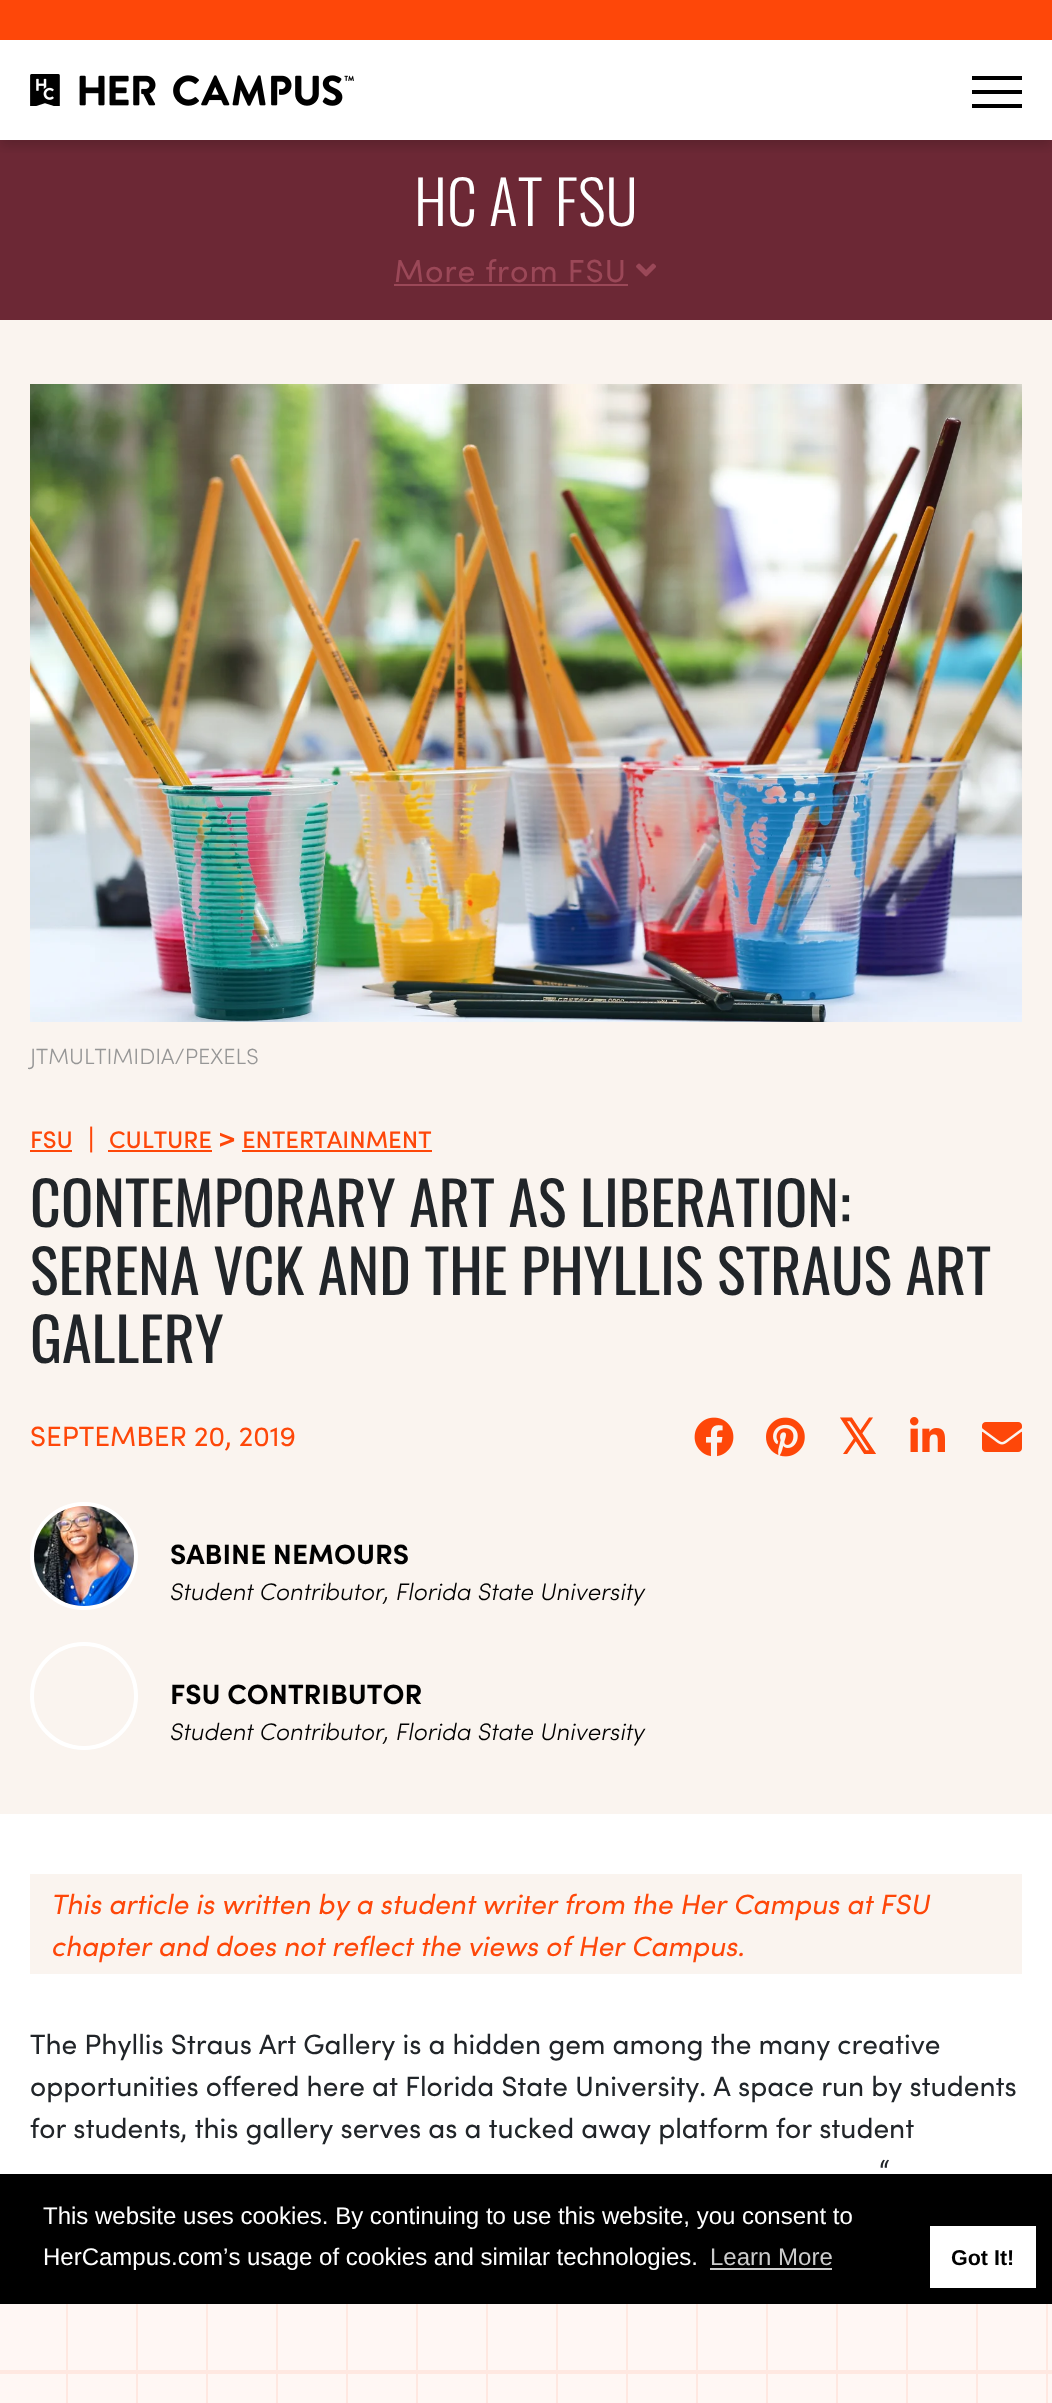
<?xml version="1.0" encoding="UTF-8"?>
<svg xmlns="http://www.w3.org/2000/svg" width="1052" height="2403">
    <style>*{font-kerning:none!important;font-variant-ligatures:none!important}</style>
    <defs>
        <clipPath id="clip1"><rect x="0" y="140" width="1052" height="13"/></clipPath>
        <filter id="blur1" x="-50%" y="-200%" width="200%" height="500%"><feGaussianBlur stdDeviation="6"/></filter>
    </defs>
    <rect width="100%" height="100%" fill="#FFFFFF"/>
    <rect x="0" y="140" width="1052" height="180" fill="#6C2835"/>
    <g clip-path="url(#clip1)">
        <rect x="0" y="6" width="1052" height="140" fill="#000000" fill-opacity="0.16" filter="url(#blur1)"/>
    </g>
    <rect x="0" y="0" width="1052" height="40" fill="#FE4709"/>
    <image x="30" y="74" width="324" height="32" href="img_01.png"/>
    <rect x="972" y="76" width="50" height="4" fill="#000000"/>
    <rect x="972" y="90" width="50" height="4" fill="#000000"/>
    <rect x="972" y="104" width="50" height="4" fill="#000000"/>
    <rect x="0" y="320" width="1052" height="1494" fill="#FAF4EF"/>
    <text x="414" y="226" font-family="Oswald" font-size="60" font-weight="300" fill="#FFFFFF">HC AT FSU</text>
    <text x="394" y="282" font-family="Sofia" font-size="32" letter-spacing="0.9" fill="#9B4858">More from FSU</text>
    <rect x="394" y="284" width="234" height="2" fill="#9B4858"/>
    <image x="636" y="263" width="20" height="14" href="img_02.png"/>
    <image x="30" y="384" width="992" height="638" href="img_03.png"/>
    <text x="30" y="1064" font-family="Sofia" font-size="22" font-weight="300" fill="#969696">JTMULTIMIDIA/PEXELS</text>
    <text x="30" y="1148" font-family="Sofia" font-size="24" font-weight="500" fill="#FE4709">FSU</text>
    <rect x="30" y="1150" width="42" height="2" fill="#FE4709"/>
    <text x="88" y="1149" font-family="Sofia" font-size="28" font-weight="700" fill="#FE4709">|</text>
    <text x="109" y="1148" font-family="Sofia" font-size="24" font-weight="500" fill="#FE4709">CULTURE</text>
    <rect x="108" y="1150" width="104" height="2" fill="#FE4709"/>
    <text x="218" y="1148" font-family="Sofia" font-size="28" font-weight="700" fill="#FE4709">&gt;</text>
    <text x="242" y="1148" font-family="Sofia" font-size="24" font-weight="500" fill="#FE4709">ENTERTAINMENT</text>
    <rect x="242" y="1150" width="190" height="2" fill="#FE4709"/>
    <text font-family="Oswald" font-size="60" fill="#212529">
        <tspan x="30" y="1227">CONTEMPORARY ART AS LIBERATION:</tspan>
        <tspan x="30" y="1295">SERENA VCK AND THE PHYLLIS STRAUS ART</tspan>
        <tspan x="30" y="1363">GALLERY</tspan>
    </text>
    <text x="30" y="1446" font-family="Sofia" font-size="28" fill="#FE4709">SEPTEMBER 20, 2019</text>
    <image x="694" y="1417" width="40" height="40" href="img_04.png"/>
    <image x="766" y="1417" width="39" height="40" href="img_05.png"/>
    <text x="838" y="1454" font-family="DejaVu Sans" font-size="48" font-weight="700" fill="#FE4709">𝕏</text>
    <image x="910" y="1417" width="35" height="35" href="img_06.png"/>
    <image x="982" y="1422" width="40" height="30" href="img_07.png"/>
    <circle cx="84" cy="1556" r="52" fill="none" stroke="#FFFFFF" stroke-width="4"/>
    <circle cx="84" cy="1556" r="50" fill="#FFE8E1"/>
    <image x="34" y="1506" width="100" height="100" href="img_08.png"/>
    <text x="170" y="1564" font-family="Sofia" font-size="28" font-weight="700" fill="#000000">SABINE NEMOURS</text>
    <text x="170" y="1600" font-family="Sofia" font-size="24" font-weight="300" font-style="italic" fill="#000000">Student Contributor, Florida State University</text>
    <circle cx="84" cy="1696" r="52" fill="none" stroke="#FFFFFF" stroke-width="4"/>
    <text x="170" y="1704" font-family="Sofia" font-size="28" font-weight="700" fill="#000000">FSU CONTRIBUTOR</text>
    <text x="170" y="1740" font-family="Sofia" font-size="24" font-weight="300" font-style="italic" fill="#000000">Student Contributor, Florida State University</text>
    <rect x="30" y="1874" width="992" height="100" fill="#FAF4EF"/>
    <text font-family="Sofia" font-size="28" font-style="italic" fill="#FE4709">
        <tspan x="52" y="1914">This article is written by a student writer from the Her Campus at FSU</tspan>
        <tspan x="52" y="1956">chapter and does not reflect the views of Her Campus.</tspan>
    </text>
    <text font-family="Sofia" font-size="28" fill="#212529">
        <tspan x="30" y="2054">The Phyllis Straus Art Gallery is a hidden gem among the many creative</tspan>
        <tspan x="30" y="2096">opportunities offered here at Florida State University. A</tspan>
    </text>
    <text x="738" y="2096" font-family="Sofia" font-size="28" fill="#212529">space run by students</text>
    <text x="30" y="2138" font-family="Sofia" font-size="28" fill="#212529">for students, this gallery serves as a tucked away platform for student</text>
    <text x="879" y="2180" font-family="Sofia" font-size="28" fill="#212529">“</text>
    <rect x="0" y="2304" width="1052" height="99" fill="#FFF7F4"/>
    <rect x="66" y="2304" width="2" height="99" fill="#FFE8E1"/>
    <rect x="136" y="2304" width="2" height="99" fill="#FFE8E1"/>
    <rect x="206" y="2304" width="2" height="99" fill="#FFE8E1"/>
    <rect x="276" y="2304" width="2" height="99" fill="#FFE8E1"/>
    <rect x="346" y="2304" width="2" height="99" fill="#FFE8E1"/>
    <rect x="416" y="2304" width="2" height="99" fill="#FFE8E1"/>
    <rect x="486" y="2304" width="2" height="99" fill="#FFE8E1"/>
    <rect x="556" y="2304" width="2" height="99" fill="#FFE8E1"/>
    <rect x="626" y="2304" width="2" height="99" fill="#FFE8E1"/>
    <rect x="696" y="2304" width="2" height="99" fill="#FFE8E1"/>
    <rect x="766" y="2304" width="2" height="99" fill="#FFE8E1"/>
    <rect x="836" y="2304" width="2" height="99" fill="#FFE8E1"/>
    <rect x="906" y="2304" width="2" height="99" fill="#FFE8E1"/>
    <rect x="976" y="2304" width="2" height="99" fill="#FFE8E1"/>
    <rect x="1046" y="2304" width="2" height="99" fill="#FFE8E1"/>
    <rect x="0" y="2370" width="1052" height="4" fill="#FFE8E1"/>
    <rect x="0" y="2174" width="1052" height="130" fill="#000000"/>
    <text font-family="Liberation Sans" font-size="24" fill="#FFFFFF">
        <tspan x="43" y="2224">This website uses cookies. By continuing to use this website, you consent to</tspan>
        <tspan x="43" y="2265">HerCampus.com’s usage of cookies and similar technologies.</tspan>
    </text>
    <text x="710" y="2265" font-family="Liberation Sans" font-size="24" fill="#CCCCCC">Learn More</text>
    <rect x="710" y="2268" width="122" height="2" fill="#CCCCCC"/>
    <rect x="930" y="2226" width="106" height="62" fill="#FFFFFF"/>
    <text x="951" y="2265" font-family="Liberation Sans" font-size="21.5" font-weight="700" fill="#000000">Got It!</text>
</svg>
